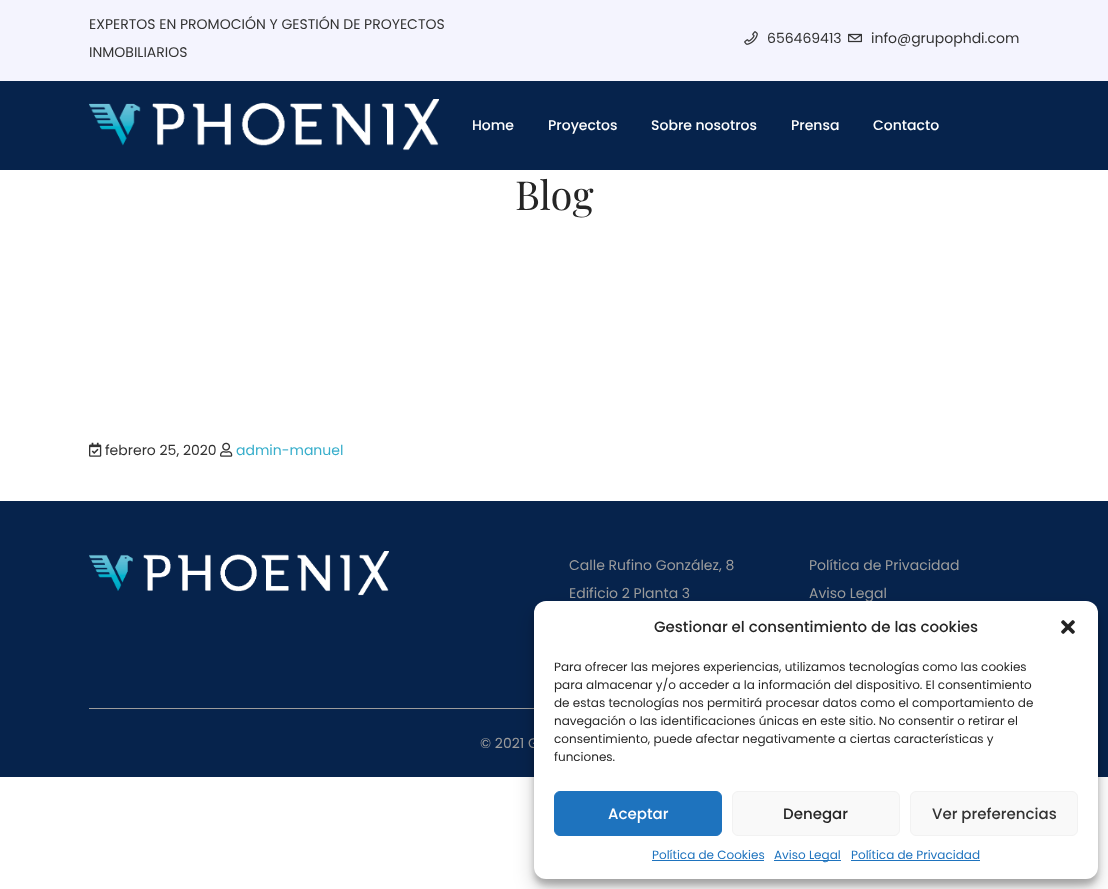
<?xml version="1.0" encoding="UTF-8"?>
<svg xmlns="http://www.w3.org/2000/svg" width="1108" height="889">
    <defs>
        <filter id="blur1" x="-50%" y="-200%" width="200%" height="500%"><feGaussianBlur stdDeviation="3"/></filter>
        <filter id="blur2" x="-50%" y="-200%" width="200%" height="500%"><feGaussianBlur stdDeviation="10"/></filter>
    </defs>
    <rect width="100%" height="100%" fill="#FFFFFF"/>
    <rect x="0" y="0" width="1108" height="81" fill="#F4F4FE"/>
    <text x="89" y="29" font-family="Poppins" font-size="14" fill="#333333">EXPERTOS EN PROMOCIÓN Y GESTIÓN DE PROYECTOS</text>
    <text x="89" y="57" font-family="Poppins" font-size="14" fill="#333333">INMOBILIARIOS</text>
    <image x="744" y="31" width="14" height="14" href="img_01.png"/>
    <text x="767" y="43" font-family="Poppins" font-size="14" fill="#333333">656469413</text>
    <image x="848" y="33" width="15" height="10" href="img_02.png"/>
    <text x="871" y="43" font-family="Poppins" font-size="14" fill="#333333">info@grupophdi.com</text>
    <rect x="0" y="81" width="1108" height="89" fill="#06234C"/>
    <image x="89" y="99" width="350" height="52" href="img_03.png"/>
    <text x="472" y="130" font-family="Poppins" font-size="14" font-weight="500" fill="#FFFFFF">Home</text>
    <text x="548" y="130" font-family="Poppins" font-size="14" font-weight="500" fill="#FFFFFF">Proyectos</text>
    <text x="651" y="130" font-family="Poppins" font-size="14" font-weight="500" fill="#FFFFFF">Sobre nosotros</text>
    <text x="791" y="130" font-family="Poppins" font-size="14" font-weight="500" fill="#FFFFFF">Prensa</text>
    <text x="873" y="130" font-family="Poppins" font-size="14" font-weight="500" fill="#FFFFFF">Contacto</text>
    <text x="515" y="210" font-family="Playfair Display" font-size="40" fill="#252525">Blog</text>
    <image x="89" y="442" width="13" height="15" href="img_04.png"/>
    <text x="105" y="455" font-family="Poppins" font-size="14" fill="#333333">febrero 25, 2020</text>
    <image x="220" y="442" width="13" height="15" href="img_05.png"/>
    <text x="236" y="455" font-family="Poppins" font-size="14" fill="#37AECB">admin-manuel</text>
    <rect x="0" y="501" width="1108" height="276" fill="#06234C"/>
    <image x="89" y="551" width="300" height="45" href="img_06.png"/>
    <text x="569" y="570" font-family="Poppins" font-size="14" fill="#9C9C9C">Calle Rufino González, 8</text>
    <text x="569" y="598" font-family="Poppins" font-size="14" fill="#9C9C9C">Edificio 2 Planta 3</text>
    <text x="809" y="570" font-family="Poppins" font-size="14" fill="#9C9C9C">Política de Privacidad</text>
    <text x="809" y="598" font-family="Poppins" font-size="14" fill="#9C9C9C">Aviso Legal</text>
    <rect x="89" y="708" width="445" height="1" fill="#9C9C9C"/>
    <text x="480" y="748" font-family="Poppins" font-size="14" fill="#9C9C9C">© 2021 G</text>
    <rect x="534" y="607" width="564" height="278" rx="12" fill="#000000" fill-opacity="0.23" filter="url(#blur1)"/>
    <rect x="534" y="611" width="564" height="278" rx="12" fill="#000000" fill-opacity="0.19" filter="url(#blur2)"/>
    <rect x="534" y="601" width="564" height="278" rx="12" fill="#FFFFFF"/>
    <text x="654" y="632" font-family="Poppins" font-size="15" font-weight="500" fill="#252525">Gestionar el consentimiento de las cookies</text>
    <image x="1061" y="620" width="14" height="14" href="img_07.png"/>
    <text font-family="Poppins" font-size="12" fill="#252525">
        <tspan x="554" y="671">Para ofrecer las mejores experiencias, utilizamos tecnologías como las cookies</tspan>
        <tspan x="554" y="689">para almacenar y/o acceder a la información del dispositivo. El consentimiento</tspan>
        <tspan x="554" y="707">de estas tecnologías nos permitirá procesar datos como el comportamiento de</tspan>
        <tspan x="554" y="725">navegación o las identificaciones únicas en este sitio. No consentir o retirar el</tspan>
        <tspan x="554" y="743">consentimiento, puede afectar negativamente a ciertas características y</tspan>
        <tspan x="554" y="761">funciones.</tspan>
    </text>
    <rect x="554.5" y="791.5" width="167" height="44" rx="5.5" fill="#1E73BE" stroke="#1E73BE"/>
    <text x="608" y="819" font-family="Poppins" font-size="15" font-weight="500" fill="#FFFFFF">Aceptar</text>
    <rect x="732.5" y="791.5" width="167" height="44" rx="5.5" fill="#F9F9F9" stroke="#F2F2F2"/>
    <text x="783" y="819" font-family="Poppins" font-size="15" font-weight="500" fill="#252525">Denegar</text>
    <rect x="910.5" y="791.5" width="167" height="44" rx="5.5" fill="#F9F9F9" stroke="#F2F2F2"/>
    <text x="932" y="819" font-family="Poppins" font-size="15" font-weight="500" fill="#333333">Ver preferencias</text>
    <text x="652" y="859" font-family="Poppins" font-size="12" fill="#1E73BE">Política de Cookies</text>
    <rect x="652" y="860" width="112" height="1" fill="#1E73BE"/>
    <rect x="774" y="860" width="67" height="1" fill="#1E73BE"/>
    <text x="774" y="859" font-family="Poppins" font-size="12" fill="#1E73BE">Aviso Legal</text>
    <text x="851" y="859" font-family="Poppins" font-size="12" fill="#1E73BE">Política de Privacidad</text>
    <rect x="851" y="860" width="129" height="1" fill="#1E73BE"/>
</svg>
